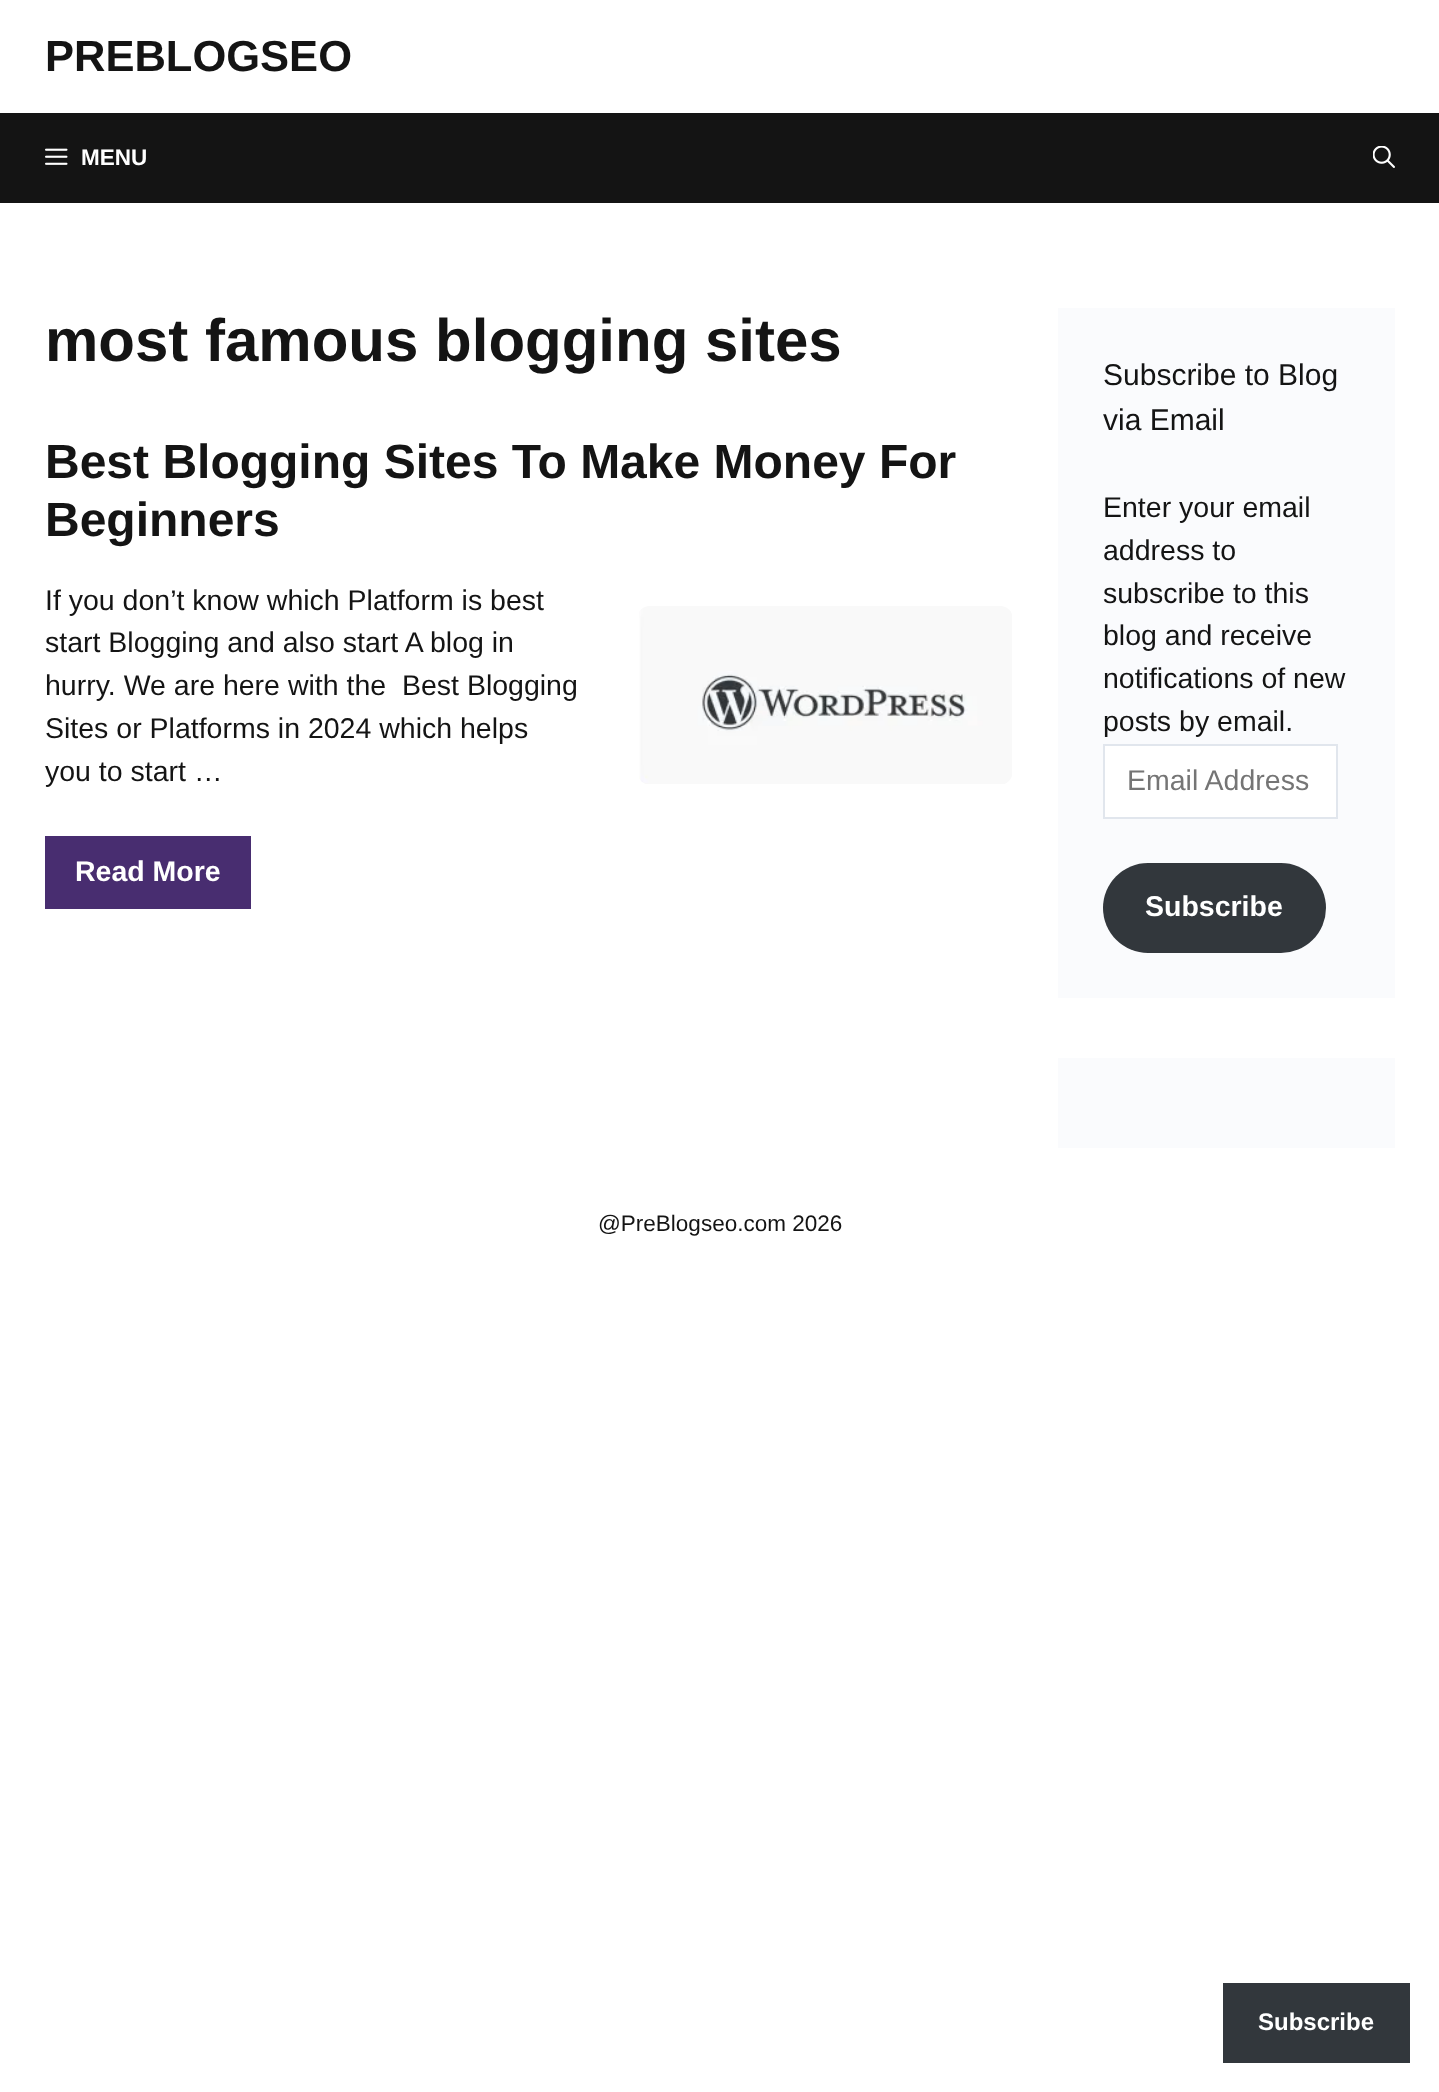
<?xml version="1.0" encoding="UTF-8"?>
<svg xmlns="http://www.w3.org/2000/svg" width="1439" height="2092">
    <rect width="100%" height="100%" fill="#FFFFFF"/>
    <text x="45" y="71" font-family="Liberation Sans" font-size="43.5" font-weight="700" fill="#141414">PREBLOGSEO</text>
    <rect x="0" y="113" width="1439" height="90" fill="#141414"/>
    <image x="45" y="148" width="23" height="17" href="img_01.png"/>
    <text x="81" y="165" font-family="Liberation Sans" font-size="22.5" font-weight="700" fill="#FFFFFF">MENU</text>
    <image x="1373" y="146" width="22" height="22" href="img_02.png"/>
    <text x="45" y="361" font-family="Liberation Sans" font-size="60" font-weight="700" fill="#141414">most famous blogging sites</text>
    <text font-family="Liberation Sans" font-size="48" font-weight="700" fill="#141414">
        <tspan x="45" y="478">Best Blogging Sites To Make Money For</tspan>
        <tspan x="45" y="536">Beginners</tspan>
    </text>
    <text font-family="Liberation Sans" font-size="28.5" fill="#141414" xml:space="preserve"><tspan x="45" y="610">If you don’t know which Platform is best</tspan><tspan x="45" y="652">start Blogging and also start A blog in</tspan><tspan x="45" y="695">hurry. We are here with the  Best Blogging</tspan><tspan x="45" y="738">Sites or Platforms in 2024 which helps</tspan><tspan x="45" y="781">you to start …</tspan></text>
    <rect x="45" y="836" width="206" height="73" fill="#482D70"/>
    <text x="75" y="881" font-family="Liberation Sans" font-size="28.5" font-weight="700" fill="#FFFFFF">Read More</text>
    <image x="639" y="606" width="373" height="178" href="img_03.png"/>
    <rect x="1058" y="308" width="337" height="690" fill="#FAFBFD"/>
    <text font-family="Liberation Sans" font-size="30" fill="#141414">
        <tspan x="1103" y="385">Subscribe to Blog</tspan>
        <tspan x="1103" y="430">via Email</tspan>
    </text>
    <text font-family="Liberation Sans" font-size="28.5" fill="#141414">
        <tspan x="1103" y="517">Enter your email</tspan>
        <tspan x="1103" y="560">address to</tspan>
        <tspan x="1103" y="603">subscribe to this</tspan>
        <tspan x="1103" y="645">blog and receive</tspan>
        <tspan x="1103" y="688">notifications of new</tspan>
        <tspan x="1103" y="731">posts by email.</tspan>
    </text>
    <rect x="1104" y="745" width="233" height="73" fill="#FFFFFF" stroke="#E1E6ED" stroke-width="2"/>
    <text x="1127" y="790" font-family="Liberation Sans" font-size="28.5" fill="#757575">Email Address</text>
    <rect x="1103" y="863" width="223" height="90" rx="45" fill="#32373C"/>
    <text x="1145" y="916" font-family="Liberation Sans" font-size="28.5" font-weight="700" fill="#FFFFFF">Subscribe</text>
    <rect x="1058" y="1058" width="337" height="90" fill="#FAFBFD"/>
    <text x="598" y="1231" font-family="Liberation Sans" font-size="22.5" fill="#141414">@PreBlogseo.com 2026</text>
    <rect x="1223" y="1983" width="187" height="80" fill="#32373C"/>
    <text x="1258" y="2030" font-family="Liberation Sans" font-size="24" font-weight="700" fill="#FFFFFF">Subscribe</text>
</svg>
